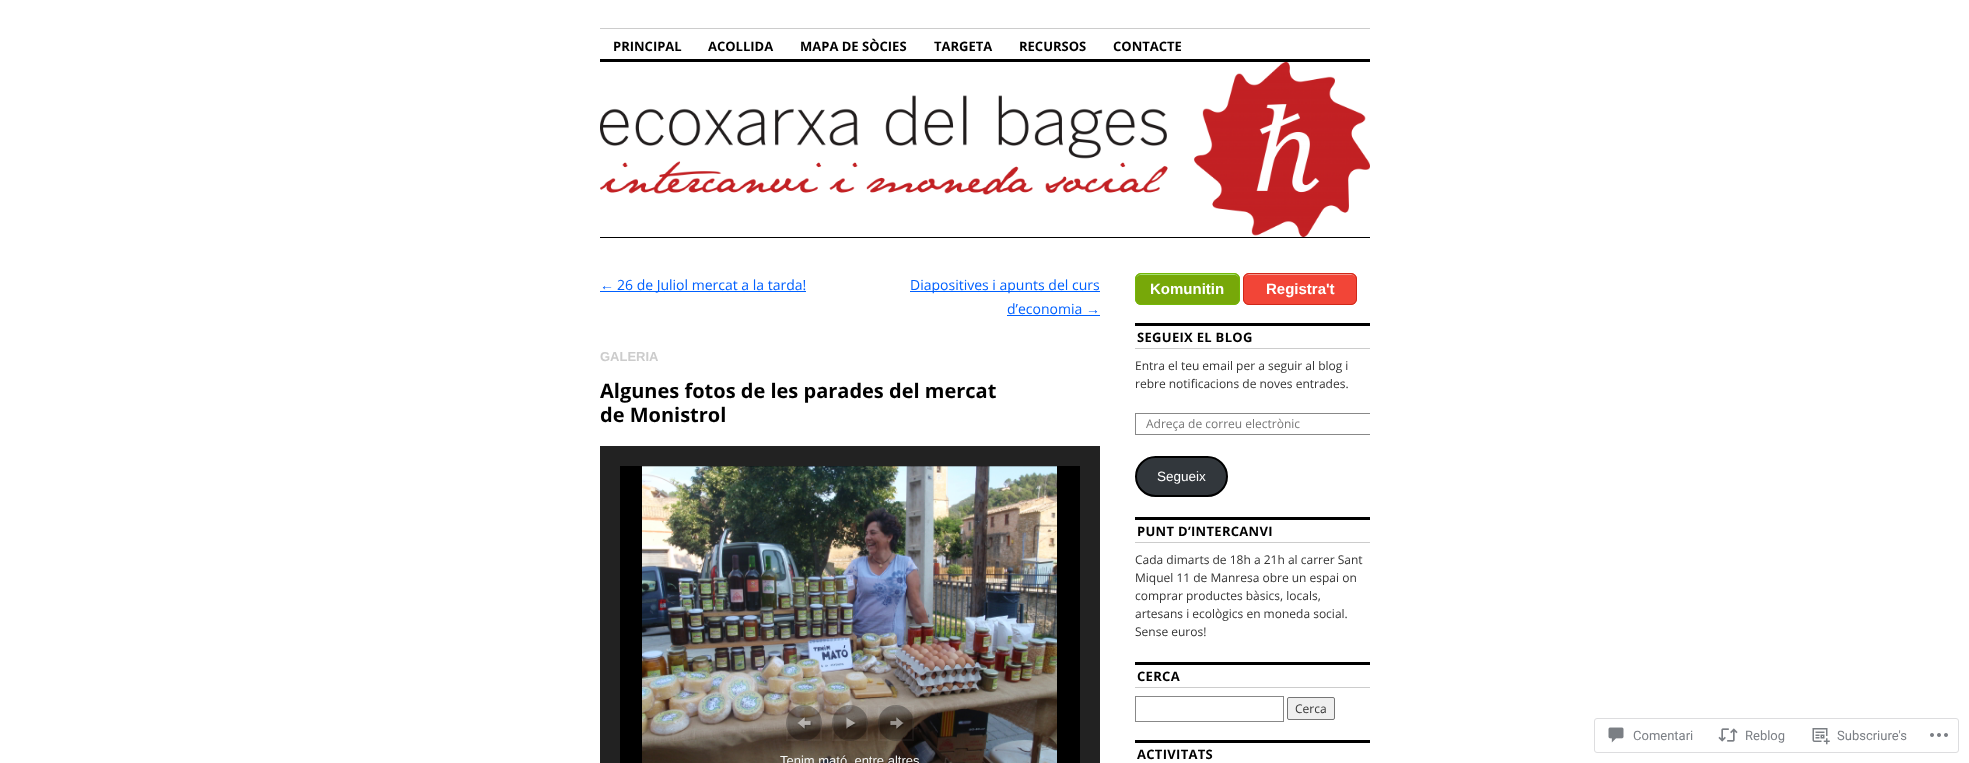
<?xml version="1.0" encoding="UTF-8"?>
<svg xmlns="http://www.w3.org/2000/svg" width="1969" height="763">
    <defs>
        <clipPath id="clip1"><rect x="1135" y="273" width="235" height="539"/></clipPath>
    </defs>
    <rect width="100%" height="100%" fill="#FFFFFF"/>
    <rect x="600" y="28" width="770" height="1" fill="#CCCCCC"/>
    <text x="613" y="51" font-family="Open Sans" font-size="13" font-weight="700" fill="#000000">PRINCIPAL</text>
    <text x="708" y="51" font-family="Open Sans" font-size="13" font-weight="700" fill="#000000">ACOLLIDA</text>
    <text x="800" y="51" font-family="Open Sans" font-size="13" font-weight="700" fill="#000000">MAPA DE SÒCIES</text>
    <text x="934" y="51" font-family="Open Sans" font-size="13" font-weight="700" fill="#000000">TARGETA</text>
    <text x="1019" y="51" font-family="Open Sans" font-size="13" font-weight="700" fill="#000000">RECURSOS</text>
    <text x="1113" y="51" font-family="Open Sans" font-size="13" font-weight="700" fill="#000000">CONTACTE</text>
    <rect x="600" y="59" width="770" height="3" fill="#000000"/>
    <image x="600" y="62" width="770" height="175" href="img_01.png"/>
    <rect x="600" y="237" width="770" height="1" fill="#000000"/>
    <text x="600" y="290" font-family="Liberation Sans" font-size="14" fill="#0060FF">←</text>
    <rect x="600" y="291" width="206" height="1" fill="#0060FF"/>
    <text x="617" y="290" font-family="Open Sans" font-size="14" fill="#0060FF">26 de Juliol mercat a la tarda!</text>
    <rect x="910" y="291" width="190" height="1" fill="#0060FF"/>
    <text x="910" y="290" font-family="Open Sans" font-size="14" fill="#0060FF">Diapositives i apunts del curs</text>
    <text x="1007" y="314" font-family="Open Sans" font-size="14" fill="#0060FF">d’economia</text>
    <text x="1086" y="314" font-family="Liberation Sans" font-size="14" fill="#0060FF">→</text>
    <rect x="1007" y="315" width="93" height="1" fill="#0060FF"/>
    <text x="600" y="361" font-family="Liberation Sans" font-size="13" font-weight="700" fill="#CCCCCC">GALERIA</text>
    <text font-family="Open Sans" font-size="20" font-weight="700" fill="#000000">
        <tspan x="600" y="398">Algunes fotos de les parades del mercat</tspan>
        <tspan x="600" y="422">de Monistrol</tspan>
    </text>
    <rect x="610" y="456" width="480" height="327" fill="none" stroke="#222222" stroke-width="20"/>
    <rect x="620" y="466" width="460" height="297" fill="#000000"/>
    <image x="642" y="466" width="415" height="297" href="img_05.png"/>
    <circle cx="804" cy="723" r="18" fill="#000000" fill-opacity="0.3"/>
    <image x="797" y="717" width="16" height="13" href="img_02.png"/>
    <rect x="787" y="706" width="34" height="34" fill="none" stroke="#FFFFFF" stroke-opacity="0.05" stroke-width="2"/>
    <circle cx="850" cy="723" r="18" fill="#000000" fill-opacity="0.3"/>
    <image x="846" y="717" width="11" height="12" href="img_03.png"/>
    <rect x="833" y="706" width="34" height="34" fill="none" stroke="#FFFFFF" stroke-opacity="0.05" stroke-width="2"/>
    <circle cx="896" cy="723" r="18" fill="#000000" fill-opacity="0.3"/>
    <image x="890" y="717" width="14" height="13" href="img_04.png"/>
    <rect x="879" y="706" width="34" height="34" fill="none" stroke="#FFFFFF" stroke-opacity="0.05" stroke-width="2"/>
    <text x="780" y="765" font-family="Liberation Sans" font-size="13" fill="#F6F7F7">Tenim mató, entre altres</text>
    <rect x="1135" y="273" width="105" height="32" rx="6" fill="#77A809"/>
    <path d="M 1141 275 H 1234 C 1237 275 1239 277 1239 280 C 1239 270 1224 274 1218 274 H 1156 C 1151 274 1136 270 1136 280 C 1136 277 1138 275 1141 275 Z" fill="#A4E271"/>
    <rect x="1135.5" y="273.5" width="104" height="31" rx="5.5" fill="none" stroke="#74B807"/>
    <text x="1150" y="294" font-family="Liberation Sans" font-size="15" font-weight="700" fill="#FFFFFF">Komunitin</text>
    <rect x="1243" y="273" width="114" height="32" rx="6" fill="#F24537"/>
    <path d="M 1249 275 H 1351 C 1354 275 1356 277 1356 280 C 1356 270 1339 274 1334 274 H 1266 C 1261 274 1244 270 1244 280 C 1244 277 1246 275 1249 275 Z" fill="#F5978E"/>
    <rect x="1243.5" y="273.5" width="113" height="31" rx="5.5" fill="none" stroke="#D02718"/>
    <text x="1266" y="294" font-family="Liberation Sans" font-size="15" font-weight="700" fill="#FFFFFF">Registra't</text>
    <rect x="1135" y="323" width="235" height="3" fill="#000000"/>
    <rect x="1135" y="348" width="235" height="1" fill="#CCCCCC"/>
    <text x="1137" y="342" font-family="Open Sans" font-size="13" font-weight="700" letter-spacing="0.3" fill="#000000">SEGUEIX EL BLOG</text>
    <text font-family="Open Sans" font-size="12" fill="#333333">
        <tspan x="1135" y="370">Entra el teu email per a seguir al blog i</tspan>
        <tspan x="1135" y="388">rebre notificacions de noves entrades.</tspan>
    </text>
    <g clip-path="url(#clip1)">
        <rect x="1135.5" y="413.5" width="244" height="21" fill="none" stroke="#888888"/>
    </g>
    <text x="1146" y="428" font-family="Open Sans" font-size="12" fill="#757575">Adreça de correu electrònic</text>
    <rect x="1136" y="457" width="91" height="39" rx="19.5" fill="#32373C" stroke="#000000" stroke-width="2"/>
    <text x="1157" y="481" font-family="Liberation Sans" font-size="13.5" fill="#FFFFFF">Segueix</text>
    <rect x="1135" y="517" width="235" height="3" fill="#000000"/>
    <rect x="1135" y="542" width="235" height="1" fill="#CCCCCC"/>
    <text x="1137" y="536" font-family="Open Sans" font-size="13" font-weight="700" letter-spacing="0.3" fill="#000000">PUNT D’INTERCANVI</text>
    <text font-family="Open Sans" font-size="12" fill="#333333">
        <tspan x="1135" y="564">Cada dimarts de 18h a 21h al carrer Sant</tspan>
        <tspan x="1135" y="582">Miquel 11 de Manresa obre un espai on</tspan>
        <tspan x="1135" y="600">comprar productes bàsics, locals,</tspan>
        <tspan x="1135" y="618">artesans i ecològics en moneda social.</tspan>
        <tspan x="1135" y="636">Sense euros!</tspan>
    </text>
    <rect x="1135" y="662" width="235" height="3" fill="#000000"/>
    <rect x="1135" y="687" width="235" height="1" fill="#CCCCCC"/>
    <text x="1137" y="681" font-family="Open Sans" font-size="13" font-weight="700" letter-spacing="0.3" fill="#000000">CERCA</text>
    <rect x="1135.5" y="696.5" width="148" height="25" fill="none" stroke="#888888"/>
    <rect x="1287.5" y="697.5" width="47" height="22" rx="1.5" fill="#EFEFEF" stroke="#767676"/>
    <text x="1295" y="713" font-family="Open Sans" font-size="12" fill="#333333">Cerca</text>
    <rect x="1135" y="740" width="235" height="3" fill="#000000"/>
    <text x="1137" y="759" font-family="Open Sans" font-size="13" font-weight="700" letter-spacing="0.3" fill="#000000">ACTIVITATS</text>
    <rect x="1594.5" y="718.5" width="364" height="34" rx="2.5" fill="none" stroke="#DDDDDF"/>
    <image x="1608" y="727" width="16" height="16" href="img_06.png"/>
    <text x="1633" y="740" font-family="Roboto" font-size="13" fill="#7B7F85">Comentari</text>
    <image x="1718" y="728" width="20" height="14" href="img_07.png"/>
    <text x="1745" y="740" font-family="Roboto" font-size="13" fill="#7B7F85">Reblog</text>
    <image x="1812" y="728" width="18" height="17" href="img_08.png"/>
    <text x="1837" y="740" font-family="Roboto" font-size="13" fill="#7B7F85">Subscriure's</text>
    <image x="1930" y="733" width="18" height="4" href="img_09.png"/>
</svg>
